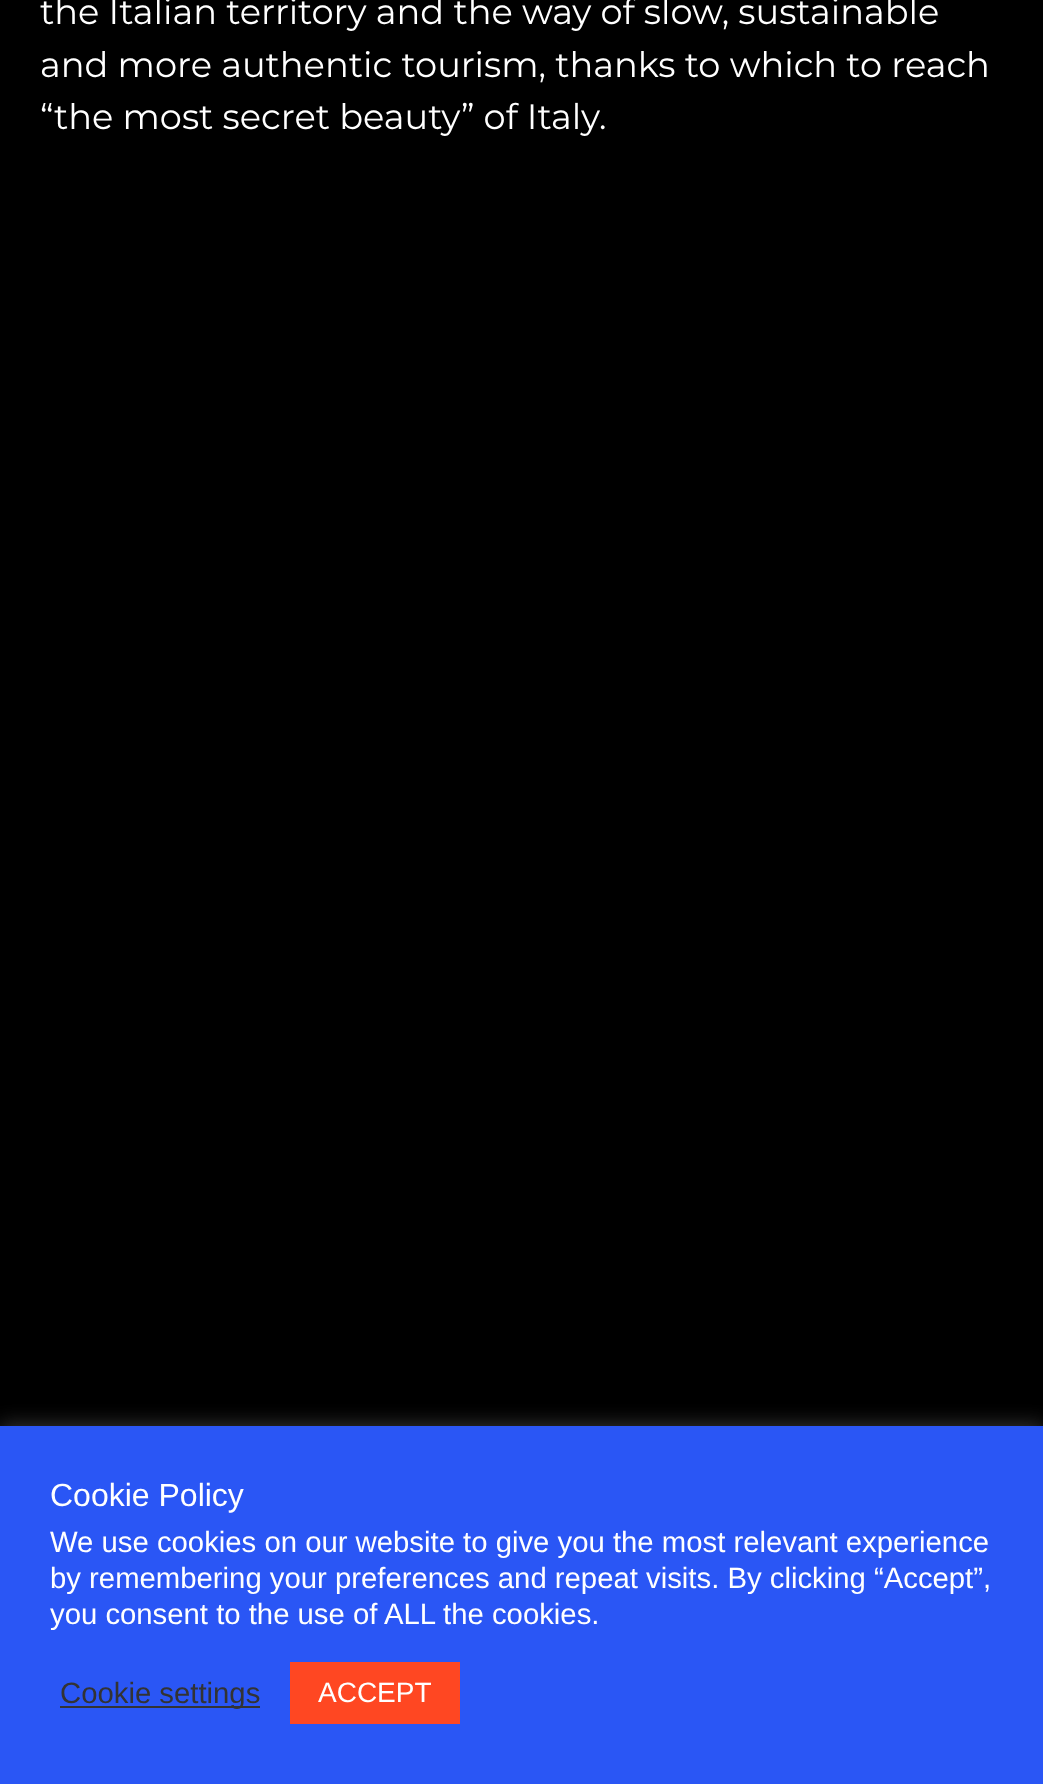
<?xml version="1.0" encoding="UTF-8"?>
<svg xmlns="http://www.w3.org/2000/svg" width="1043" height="1784">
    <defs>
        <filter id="blur1" x="-50%" y="-200%" width="200%" height="500%"><feGaussianBlur stdDeviation="10"/></filter>
    </defs>
    <rect width="100%" height="100%" fill="#000000"/>
    <text font-family="Montserrat" font-size="35.2" fill="#FFFFFF">
        <tspan x="40" y="24">the Italian territory and the way of slow, sustainable</tspan>
        <tspan x="40" y="77">and more authentic tourism, thanks to which to reach</tspan>
        <tspan x="40" y="129">“the most secret beauty” of Italy.</tspan>
    </text>
    <rect x="0" y="1424" width="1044" height="358" fill="#ACABAB" fill-opacity="0.3" filter="url(#blur1)"/>
    <rect x="0" y="1426" width="1043" height="358" fill="#2A56F5"/>
    <text x="50" y="1506" font-family="Liberation Sans" font-size="32" fill="#FFFFFF">Cookie Policy</text>
    <text font-family="Liberation Sans" font-size="29.3" fill="#FFFFFF">
        <tspan x="50" y="1552">We use cookies on our website to give you the most relevant experience</tspan>
        <tspan x="50" y="1588">by remembering your preferences and repeat visits. By clicking “Accept”,</tspan>
        <tspan x="50" y="1624">you consent to the use of ALL the cookies.</tspan>
    </text>
    <rect x="60" y="1706" width="200" height="2" fill="#333333"/>
    <text x="60" y="1703" font-family="Liberation Sans" font-size="29.3" fill="#333333">Cookie settings</text>
    <rect x="290" y="1662" width="170" height="62" fill="#FF4722"/>
    <text x="318" y="1702" font-family="Liberation Sans" font-size="28" fill="#FFFFFF">ACCEPT</text>
</svg>
